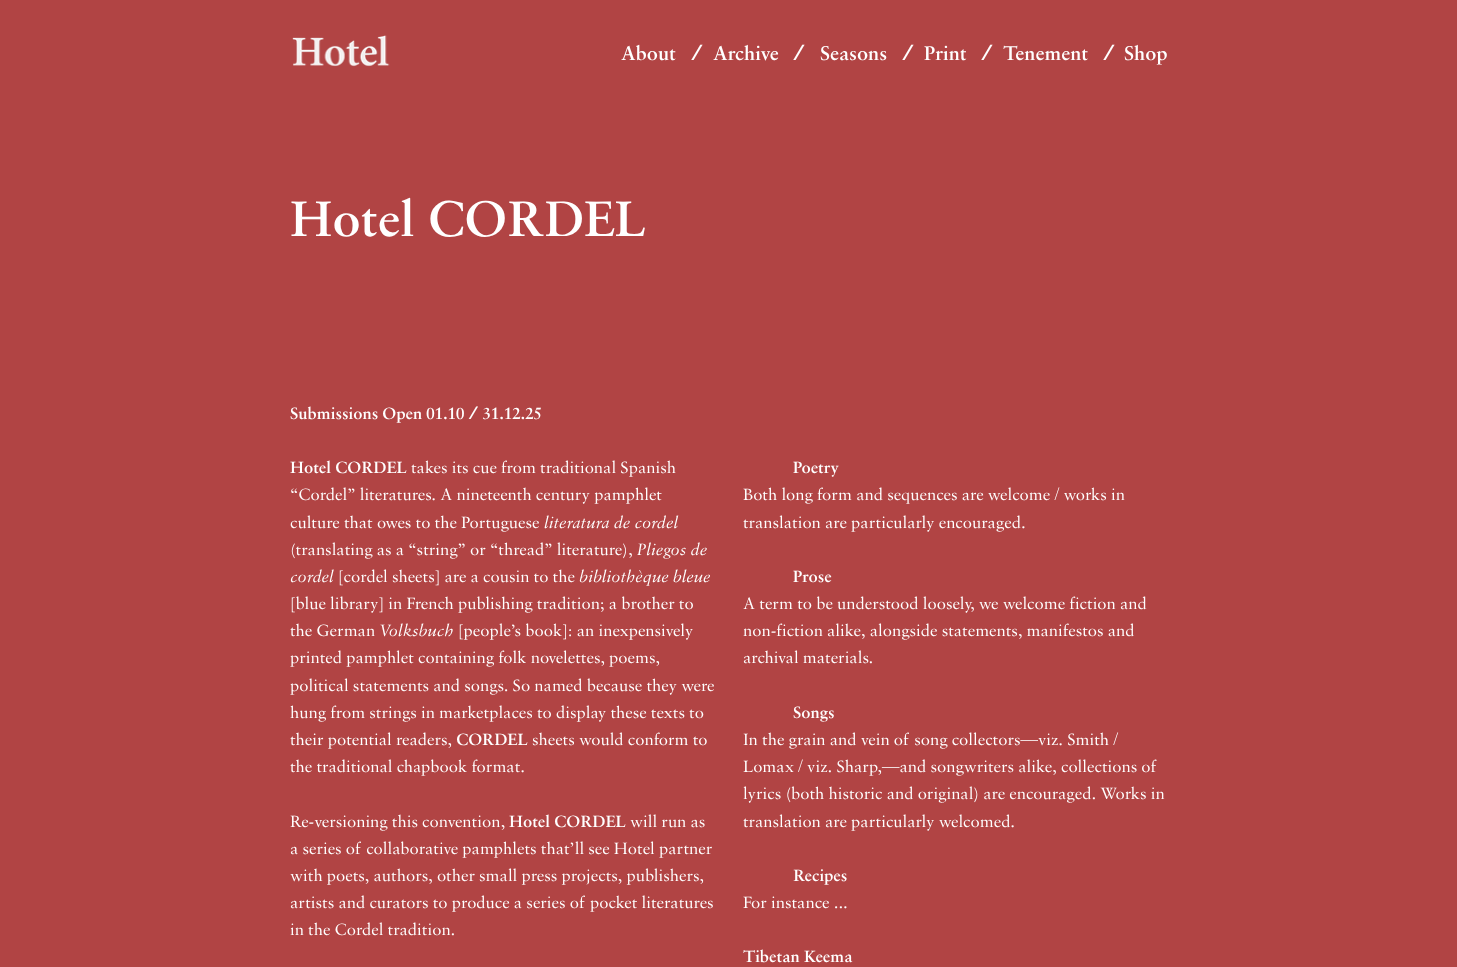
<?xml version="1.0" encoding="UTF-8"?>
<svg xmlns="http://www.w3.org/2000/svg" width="1457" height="967">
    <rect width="100%" height="100%" fill="#B14444"/>
    <image x="292" y="35" width="98" height="32" href="img_01.png"/>
    <text x="621" y="60" font-family="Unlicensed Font" font-size="21" font-weight="700" fill="#FFFFFF">About</text>
    <text x="691" y="60" font-family="Unlicensed Font" font-size="21" font-weight="700" fill="#FFFFFF">/</text>
    <text x="713" y="60" font-family="Unlicensed Font" font-size="21" font-weight="700" fill="#FFFFFF">Archive</text>
    <text x="793" y="60" font-family="Unlicensed Font" font-size="21" font-weight="700" fill="#FFFFFF">/</text>
    <text x="820" y="60" font-family="Unlicensed Font" font-size="21" font-weight="700" fill="#FFFFFF">Seasons</text>
    <text x="902" y="60" font-family="Unlicensed Font" font-size="21" font-weight="700" fill="#FFFFFF">/</text>
    <text x="924" y="60" font-family="Unlicensed Font" font-size="21" font-weight="700" fill="#FFFFFF">Print</text>
    <text x="981" y="60" font-family="Unlicensed Font" font-size="21" font-weight="700" fill="#FFFFFF">/</text>
    <text x="1003" y="60" font-family="Unlicensed Font" font-size="21" font-weight="700" fill="#FFFFFF">Tenement</text>
    <text x="1103" y="60" font-family="Unlicensed Font" font-size="21" font-weight="700" fill="#FFFFFF">/</text>
    <text x="1124" y="60" font-family="Unlicensed Font" font-size="21" font-weight="700" fill="#FFFFFF">Shop</text>
    <text x="290" y="236" font-family="Unlicensed Font" font-size="53" font-weight="700" fill="#FFFFFF">Hotel CORDEL</text>
    <text x="290" y="419" font-family="Unlicensed Font" font-size="17.4" font-weight="700" fill="#FFFFFF">Submissions Open 01.10 / 31.12.25</text>
    <text x="290" y="473" font-family="Unlicensed Font" font-size="17.4" font-weight="700" fill="#FFFFFF">Hotel CORDEL</text>
    <text x="411" y="473" font-family="Unlicensed Font" font-size="17.4" fill="#FFFFFF">takes its cue from traditional Spanish</text>
    <text font-family="Unlicensed Font" font-size="17.4" fill="#FFFFFF">
        <tspan x="290" y="500">“Cordel” literatures. A nineteenth century pamphlet</tspan>
        <tspan x="290" y="528">culture that owes to the Portuguese</tspan>
    </text>
    <text x="544" y="528" font-family="Unlicensed Font" font-size="17.4" font-style="italic" fill="#FFFFFF">literatura de cordel</text>
    <text x="290" y="555" font-family="Unlicensed Font" font-size="17.4" fill="#FFFFFF">(translating as a “string” or “thread” literature),</text>
    <text x="637" y="555" font-family="Unlicensed Font" font-size="17.4" font-style="italic" fill="#FFFFFF">Pliegos de</text>
    <text x="290" y="582" font-family="Unlicensed Font" font-size="17.4" font-style="italic" fill="#FFFFFF">cordel</text>
    <text x="338" y="582" font-family="Unlicensed Font" font-size="17.4" fill="#FFFFFF">[cordel sheets] are a cousin to the</text>
    <text x="579" y="582" font-family="Unlicensed Font" font-size="17.4" font-style="italic" fill="#FFFFFF">bibliothèque bleue</text>
    <text font-family="Unlicensed Font" font-size="17.4" fill="#FFFFFF">
        <tspan x="290" y="609">[blue library] in French publishing tradition; a brother to</tspan>
        <tspan x="290" y="636">the German</tspan>
    </text>
    <text x="379" y="636" font-family="Unlicensed Font" font-size="17.4" font-style="italic" fill="#FFFFFF">Volksbuch</text>
    <text x="458" y="636" font-family="Unlicensed Font" font-size="17.4" fill="#FFFFFF">[people’s book]: an inexpensively</text>
    <text font-family="Unlicensed Font" font-size="17.4" fill="#FFFFFF">
        <tspan x="290" y="663">printed pamphlet containing folk novelettes, poems,</tspan>
        <tspan x="290" y="691">political statements and songs. So named because they were</tspan>
        <tspan x="290" y="718">hung from strings in marketplaces to display these texts to</tspan>
        <tspan x="290" y="745">their potential readers,</tspan>
    </text>
    <text x="456" y="745" font-family="Unlicensed Font" font-size="17.4" font-weight="700" fill="#FFFFFF">CORDEL</text>
    <text x="532" y="745" font-family="Unlicensed Font" font-size="17.4" fill="#FFFFFF">sheets would conform to</text>
    <text x="290" y="772" font-family="Unlicensed Font" font-size="17.4" fill="#FFFFFF">the traditional chapbook format.</text>
    <text x="290" y="827" font-family="Unlicensed Font" font-size="17.4" fill="#FFFFFF">Re-versioning this convention,</text>
    <text x="509" y="827" font-family="Unlicensed Font" font-size="17.4" font-weight="700" fill="#FFFFFF">Hotel CORDEL</text>
    <text x="630" y="827" font-family="Unlicensed Font" font-size="17.4" fill="#FFFFFF">will run as</text>
    <text font-family="Unlicensed Font" font-size="17.4" fill="#FFFFFF">
        <tspan x="290" y="854">a series of collaborative pamphlets that’ll see Hotel partner</tspan>
        <tspan x="290" y="881">with poets, authors, other small press projects, publishers,</tspan>
        <tspan x="290" y="908">artists and curators to produce a series of pocket literatures</tspan>
        <tspan x="290" y="935">in the Cordel tradition.</tspan>
    </text>
    <text x="793" y="473" font-family="Unlicensed Font" font-size="17.4" font-weight="700" fill="#FFFFFF">Poetry</text>
    <text font-family="Unlicensed Font" font-size="17.4" fill="#FFFFFF">
        <tspan x="743" y="500">Both long form and sequences are welcome / works in</tspan>
        <tspan x="743" y="528">translation are particularly encouraged.</tspan>
    </text>
    <text x="793" y="582" font-family="Unlicensed Font" font-size="17.4" font-weight="700" fill="#FFFFFF">Prose</text>
    <text font-family="Unlicensed Font" font-size="17.4" fill="#FFFFFF">
        <tspan x="743" y="609">A term to be understood loosely, we welcome fiction and</tspan>
        <tspan x="743" y="636">non-fiction alike, alongside statements, manifestos and</tspan>
        <tspan x="743" y="663">archival materials.</tspan>
    </text>
    <text x="793" y="718" font-family="Unlicensed Font" font-size="17.4" font-weight="700" fill="#FFFFFF">Songs</text>
    <text font-family="Unlicensed Font" font-size="17.4" fill="#FFFFFF">
        <tspan x="743" y="745">In the grain and vein of song collectors—viz. Smith /</tspan>
        <tspan x="743" y="772">Lomax / viz. Sharp,—and songwriters alike, collections of</tspan>
        <tspan x="743" y="799">lyrics (both historic and original) are encouraged. Works in</tspan>
        <tspan x="743" y="827">translation are particularly welcomed.</tspan>
    </text>
    <text x="793" y="881" font-family="Unlicensed Font" font-size="17.4" font-weight="700" fill="#FFFFFF">Recipes</text>
    <text x="743" y="908" font-family="Unlicensed Font" font-size="17.4" fill="#FFFFFF">For instance ...</text>
    <text x="743" y="962" font-family="Unlicensed Font" font-size="17.4" font-weight="700" fill="#FFFFFF">Tibetan Keema</text>
</svg>
